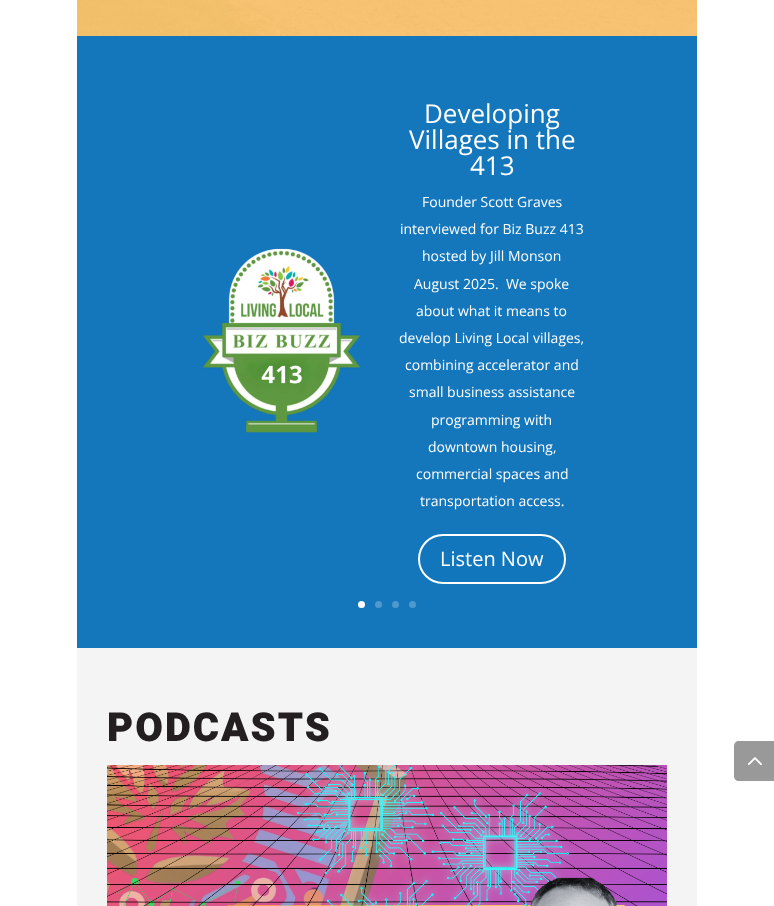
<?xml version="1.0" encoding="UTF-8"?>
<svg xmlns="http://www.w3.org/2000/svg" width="774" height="906">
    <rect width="100%" height="100%" fill="#FFFFFF"/>
    <image x="77" y="0" width="620" height="36" href="img_01.png"/>
    <rect x="77" y="36" width="620" height="612" fill="#1476BB"/>
    <image x="203" y="248" width="157" height="185" href="img_02.png"/>
    <text x="424" y="123" font-family="Open Sans" font-size="26" fill="#FFFFFF">Developing</text>
    <text x="409" y="149" font-family="Open Sans" font-size="26" fill="#FFFFFF">Villages in the</text>
    <text x="470" y="175" font-family="Open Sans" font-size="26" fill="#FFFFFF">413</text>
    <text x="422" y="207" font-family="Open Sans" font-size="14" fill="#FFFFFF">Founder Scott Graves</text>
    <text x="400" y="234" font-family="Open Sans" font-size="14" fill="#FFFFFF">interviewed for Biz Buzz 413</text>
    <text x="422" y="261" font-family="Open Sans" font-size="14" fill="#FFFFFF">hosted by Jill Monson</text>
    <text x="414" y="289" font-family="Open Sans" font-size="14" fill="#FFFFFF" xml:space="preserve">August 2025.  We spoke</text>
    <text x="416" y="316" font-family="Open Sans" font-size="14" fill="#FFFFFF">about what it means to</text>
    <text x="399" y="343" font-family="Open Sans" font-size="14" fill="#FFFFFF">develop Living Local villages,</text>
    <text x="405" y="370" font-family="Open Sans" font-size="14" fill="#FFFFFF">combining accelerator and</text>
    <text x="409" y="397" font-family="Open Sans" font-size="14" fill="#FFFFFF">small business assistance</text>
    <text x="431" y="425" font-family="Open Sans" font-size="14" fill="#FFFFFF">programming with</text>
    <text x="428" y="452" font-family="Open Sans" font-size="14" fill="#FFFFFF">downtown housing,</text>
    <text x="416" y="479" font-family="Open Sans" font-size="14" fill="#FFFFFF">commercial spaces and</text>
    <text x="420" y="506" font-family="Open Sans" font-size="14" fill="#FFFFFF">transportation access.</text>
    <rect x="419" y="535" width="146" height="48" rx="24" fill="#1176BB" stroke="#FFFFFF" stroke-width="2"/>
    <text x="440" y="566" font-family="Open Sans" font-size="20" fill="#FFFFFF">Listen Now</text>
    <circle cx="361.5" cy="604.5" r="3.5" fill="#FFFFFF"/>
    <circle cx="378.5" cy="604.5" r="3.5" fill="#4F99CC"/>
    <circle cx="395.5" cy="604.5" r="3.5" fill="#4F99CC"/>
    <circle cx="412.5" cy="604.5" r="3.5" fill="#4F99CC"/>
    <rect x="77" y="648" width="620" height="258" fill="#F4F4F5"/>
    <text x="107" y="741" font-family="Heebo" font-size="40" font-weight="900" letter-spacing="2" fill="#231F20">PODCASTS</text>
    <image x="107" y="765" width="560" height="141" href="img_03.png"/>
    <path d="M 739 741 H 774 V 781 H 739 C 736 781 734 779 734 776 V 746 C 734 743 736 741 739 741 Z" fill="#999999"/>
    <image x="748" y="757" width="14" height="8" href="img_04.png"/>
</svg>
